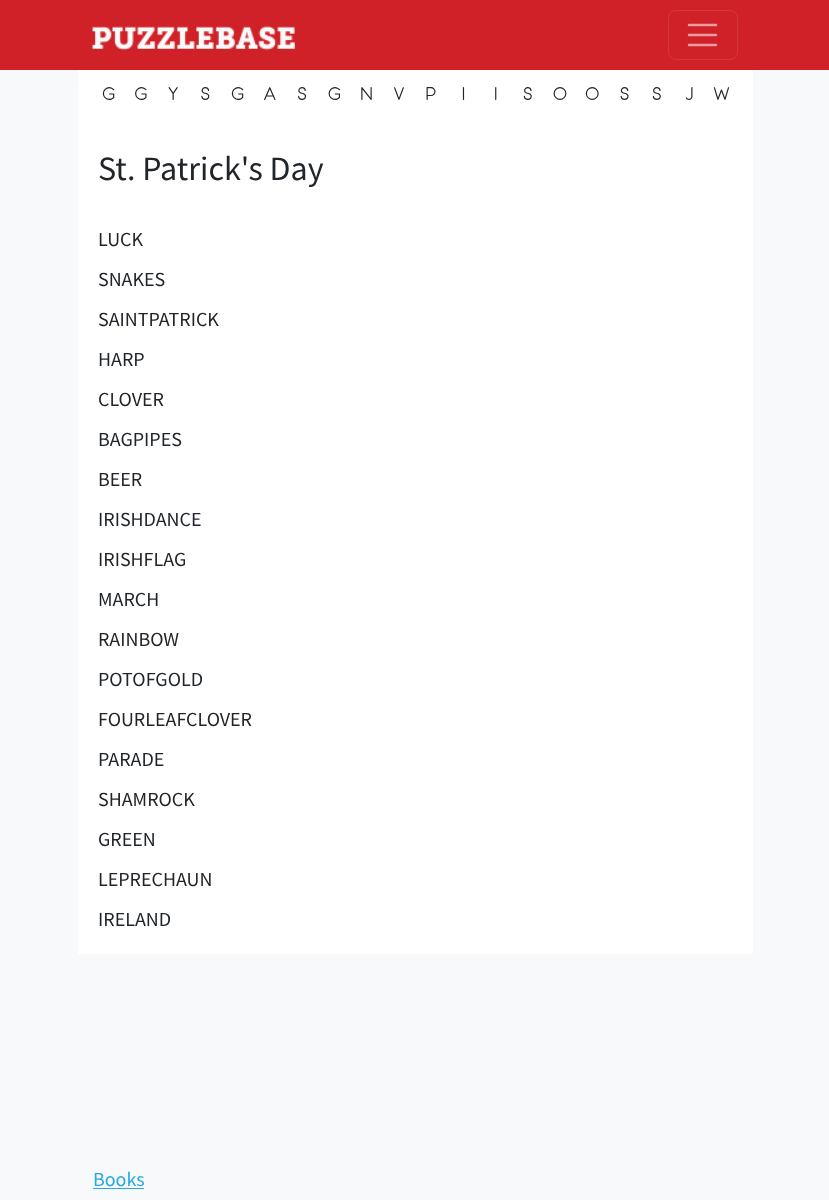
<?xml version="1.0" encoding="UTF-8"?>
<svg xmlns="http://www.w3.org/2000/svg" width="829" height="1200">
    <rect width="100%" height="100%" fill="#F8F9FA"/>
    <rect x="0" y="0" width="829" height="70" fill="#CF2127"/>
    <image x="92" y="26" width="203" height="24" href="img_01.png"/>
    <rect x="668.5" y="10.5" width="69" height="49" rx="7.5" fill="none" stroke="#D4373D"/>
    <path d="M 689 25 H 716 M 689 35 H 716 M 689 45 H 716" fill="none" stroke="#E99B9E" stroke-width="2.5" stroke-linecap="round"/>
    <rect x="78" y="70" width="675" height="884" fill="#FFFFFF"/>
    <image x="102" y="70" width="628" height="30" href="img_02.png"/>
    <text x="98" y="180" font-family="Source Sans Pro" font-size="34" fill="#212529">St. Patrick's Day</text>
    <text x="98" y="246" font-family="Source Sans Pro" font-size="20" fill="#212529">LUCK</text>
    <text x="98" y="286" font-family="Source Sans Pro" font-size="20" fill="#212529">SNAKES</text>
    <text x="98" y="326" font-family="Source Sans Pro" font-size="20" fill="#212529">SAINTPATRICK</text>
    <text x="98" y="366" font-family="Source Sans Pro" font-size="20" fill="#212529">HARP</text>
    <text x="98" y="406" font-family="Source Sans Pro" font-size="20" fill="#212529">CLOVER</text>
    <text x="98" y="446" font-family="Source Sans Pro" font-size="20" fill="#212529">BAGPIPES</text>
    <text x="98" y="486" font-family="Source Sans Pro" font-size="20" fill="#212529">BEER</text>
    <text x="98" y="526" font-family="Source Sans Pro" font-size="20" fill="#212529">IRISHDANCE</text>
    <text x="98" y="566" font-family="Source Sans Pro" font-size="20" fill="#212529">IRISHFLAG</text>
    <text x="98" y="606" font-family="Source Sans Pro" font-size="20" fill="#212529">MARCH</text>
    <text x="98" y="646" font-family="Source Sans Pro" font-size="20" fill="#212529">RAINBOW</text>
    <text x="98" y="686" font-family="Source Sans Pro" font-size="20" fill="#212529">POTOFGOLD</text>
    <text x="98" y="726" font-family="Source Sans Pro" font-size="20" fill="#212529">FOURLEAFCLOVER</text>
    <text x="98" y="766" font-family="Source Sans Pro" font-size="20" fill="#212529">PARADE</text>
    <text x="98" y="806" font-family="Source Sans Pro" font-size="20" fill="#212529">SHAMROCK</text>
    <text x="98" y="846" font-family="Source Sans Pro" font-size="20" fill="#212529">GREEN</text>
    <text x="98" y="886" font-family="Source Sans Pro" font-size="20" fill="#212529">LEPRECHAUN</text>
    <text x="98" y="926" font-family="Source Sans Pro" font-size="20" fill="#212529">IRELAND</text>
    <text x="93" y="1186" font-family="Source Sans Pro" font-size="20" fill="#26A9E0">Books</text>
    <rect x="93" y="1188" width="51" height="1" fill="#26A9E0"/>
</svg>
